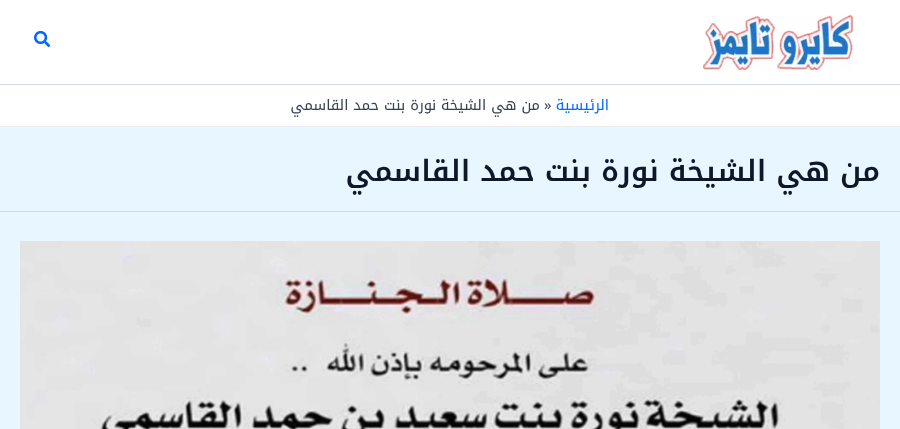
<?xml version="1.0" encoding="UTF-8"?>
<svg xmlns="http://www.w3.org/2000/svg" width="900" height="429">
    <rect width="100%" height="100%" fill="#E7F6FF"/>
    <rect x="0" y="0" width="900" height="84" fill="#FFFFFF"/>
    <rect x="0" y="84" width="900" height="1" fill="#D1DAE5"/>
    <image x="703" y="15" width="150" height="55" href="img_01.png"/>
    <image x="34" y="30" width="16" height="17" href="img_02.png"/>
    <rect x="0" y="85" width="900" height="41" fill="#FFFFFF"/>
    <rect x="0" y="126" width="900" height="1" fill="#EAEAEA"/>
    <text x="609" y="110" font-family="Noto Kufi Arabic" font-size="14.6" direction="rtl" fill="#0067FF">الرئيسية</text>
    <text x="544" y="110" font-family="Noto Kufi Arabic" font-size="14.6" fill="#364151">»</text>
    <text x="540" y="110" font-family="Noto Kufi Arabic" font-size="14.6" direction="rtl" fill="#364151">من هي الشيخة نورة بنت حمد القاسمي</text>
    <rect x="0" y="211" width="900" height="1" fill="#D1DAE5"/>
    <text x="880" y="181" font-family="Noto Kufi Arabic" font-size="29.2" font-weight="600" direction="rtl" fill="#0F172A">من هي الشيخة نورة بنت حمد القاسمي</text>
    <image x="20" y="241" width="860" height="188" href="img_03.png"/>
</svg>
